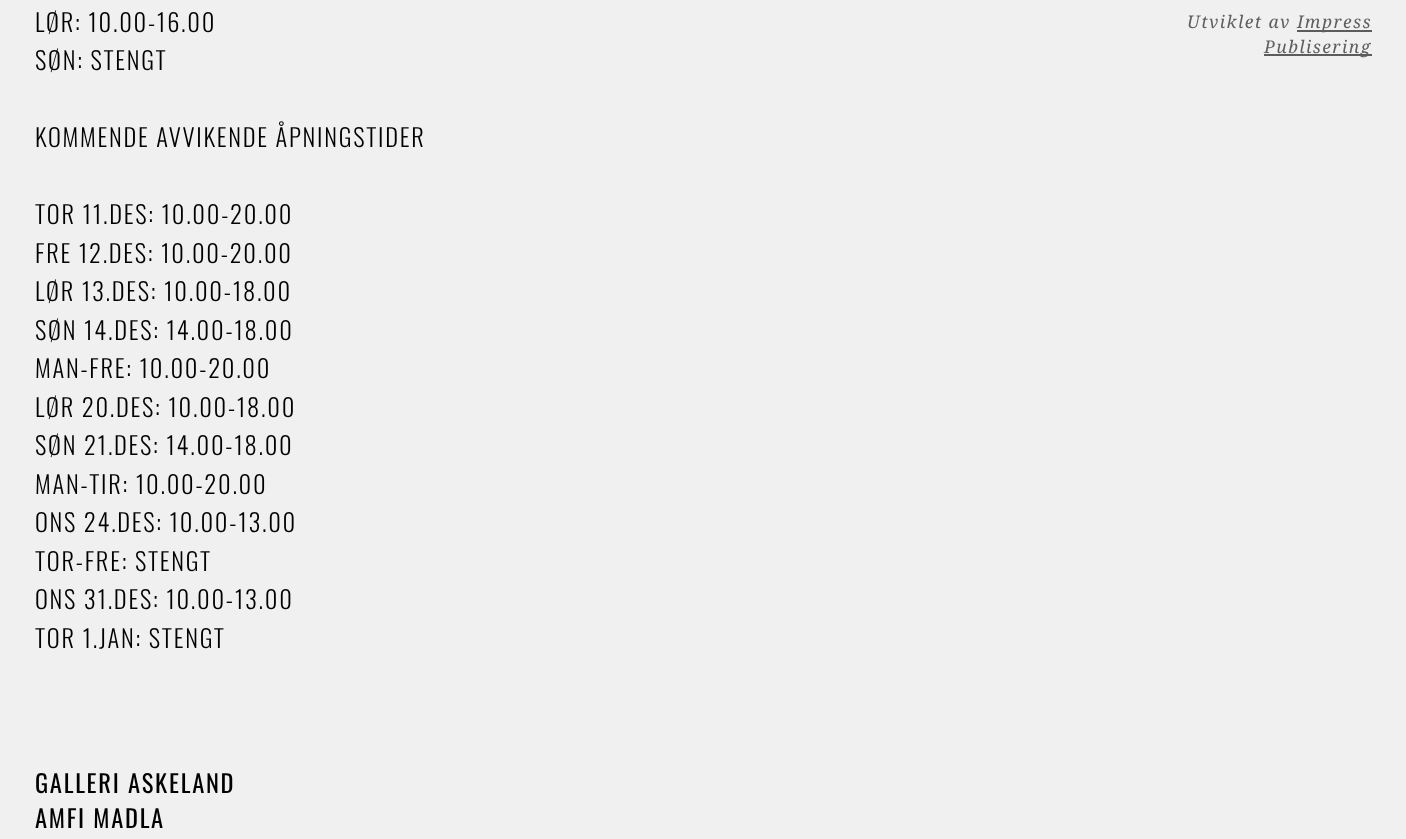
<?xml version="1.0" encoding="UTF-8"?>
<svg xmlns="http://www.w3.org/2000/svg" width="1406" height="839">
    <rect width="100%" height="100%" fill="#F0F0F0"/>
    <text font-family="Oswald" font-size="24.5" font-weight="300" letter-spacing="1.75" fill="#000000">
        <tspan x="35" y="32">LØR: 10.00-16.00</tspan>
        <tspan x="35" y="70">SØN: STENGT</tspan>
    </text>
    <text x="35" y="147" font-family="Oswald" font-size="24.5" font-weight="300" letter-spacing="1.75" fill="#000000">KOMMENDE AVVIKENDE ÅPNINGSTIDER</text>
    <text font-family="Oswald" font-size="24.5" font-weight="300" letter-spacing="1.75" fill="#000000">
        <tspan x="35" y="224">TOR 11.DES: 10.00-20.00</tspan>
        <tspan x="35" y="263">FRE 12.DES: 10.00-20.00</tspan>
        <tspan x="35" y="301">LØR 13.DES: 10.00-18.00</tspan>
        <tspan x="35" y="340">SØN 14.DES: 14.00-18.00</tspan>
        <tspan x="35" y="378">MAN-FRE: 10.00-20.00</tspan>
        <tspan x="35" y="417">LØR 20.DES: 10.00-18.00</tspan>
        <tspan x="35" y="455">SØN 21.DES: 14.00-18.00</tspan>
        <tspan x="35" y="494">MAN-TIR: 10.00-20.00</tspan>
        <tspan x="35" y="532">ONS 24.DES: 10.00-13.00</tspan>
        <tspan x="35" y="571">TOR-FRE: STENGT</tspan>
        <tspan x="35" y="609">ONS 31.DES: 10.00-13.00</tspan>
        <tspan x="35" y="648">TOR 1.JAN: STENGT</tspan>
    </text>
    <text x="1187" y="28" font-family="Droid Serif" font-size="17.5" font-style="italic" letter-spacing="1.4" fill="#5E5E5E">Utviklet av</text>
    <rect x="1297" y="30" width="75" height="2" fill="#5C5C5C"/>
    <text x="1297" y="28" font-family="Droid Serif" font-size="17.5" font-style="italic" letter-spacing="1.4" fill="#5E5E5E">Impress</text>
    <rect x="1264" y="54" width="108" height="2" fill="#5C5C5C"/>
    <text x="1264" y="53" font-family="Droid Serif" font-size="17.5" font-style="italic" letter-spacing="1.4" fill="#5E5E5E">Publisering</text>
    <text font-family="Oswald" font-size="24.5" letter-spacing="1.75" fill="#000000">
        <tspan x="35" y="793">GALLERI ASKELAND</tspan>
        <tspan x="35" y="828">AMFI MADLA</tspan>
    </text>
</svg>
